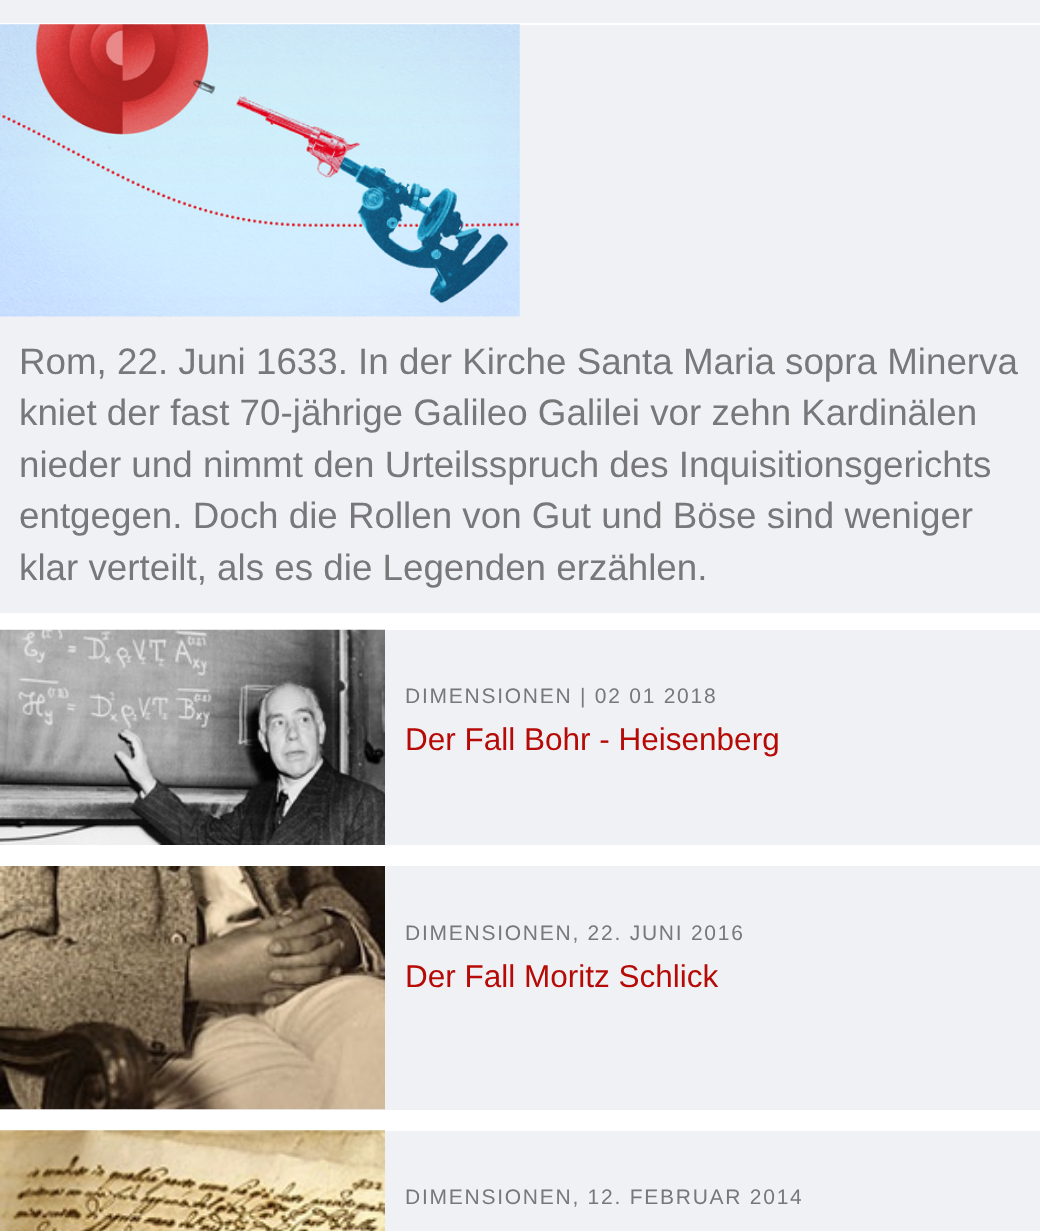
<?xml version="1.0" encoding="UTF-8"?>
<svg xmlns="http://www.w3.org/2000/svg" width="1040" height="1231">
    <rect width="100%" height="100%" fill="#FFFFFF"/>
    <rect x="0" y="0" width="1040" height="23" fill="#F0F1F4"/>
    <rect x="0" y="25" width="1040" height="588" fill="#F0F1F4"/>
    <image x="0" y="24" width="520" height="293" href="img_01.png"/>
    <text font-family="Liberation Sans" font-size="36.75" fill="#78787A">
        <tspan x="19" y="374">Rom, 22. Juni 1633. In der Kirche Santa Maria sopra Minerva</tspan>
        <tspan x="19" y="425">kniet der fast 70-jährige Galileo Galilei vor zehn Kardinälen</tspan>
        <tspan x="19" y="477">nieder und nimmt den Urteilsspruch des Inquisitionsgerichts</tspan>
        <tspan x="19" y="528">entgegen. Doch die Rollen von Gut und Böse sind weniger</tspan>
        <tspan x="19" y="580">klar verteilt, als es die Legenden erzählen.</tspan>
    </text>
    <rect x="385" y="630" width="655" height="215" fill="#F0F1F4"/>
    <image x="0" y="629" width="385" height="216" href="img_02.png"/>
    <text x="405" y="703" font-family="Liberation Sans" font-size="21" letter-spacing="1.75" fill="#78787A">DIMENSIONEN | 02 01 2018</text>
    <text x="405" y="750" font-family="Liberation Sans" font-size="31.5" fill="#B60A06">Der Fall Bohr - Heisenberg</text>
    <rect x="0" y="866" width="1040" height="244" fill="#F0F1F4"/>
    <image x="0" y="866" width="385" height="244" href="img_03.png"/>
    <text x="405" y="940" font-family="Liberation Sans" font-size="21" letter-spacing="1.75" fill="#78787A">DIMENSIONEN, 22. JUNI 2016</text>
    <text x="405" y="987" font-family="Liberation Sans" font-size="31.5" fill="#B60A06">Der Fall Moritz Schlick</text>
    <rect x="385" y="1131" width="655" height="100" fill="#F0F1F4"/>
    <image x="0" y="1130" width="385" height="101" href="img_04.png"/>
    <text x="405" y="1204" font-family="Liberation Sans" font-size="21" letter-spacing="1.75" fill="#78787A">DIMENSIONEN, 12. FEBRUAR 2014</text>
</svg>
